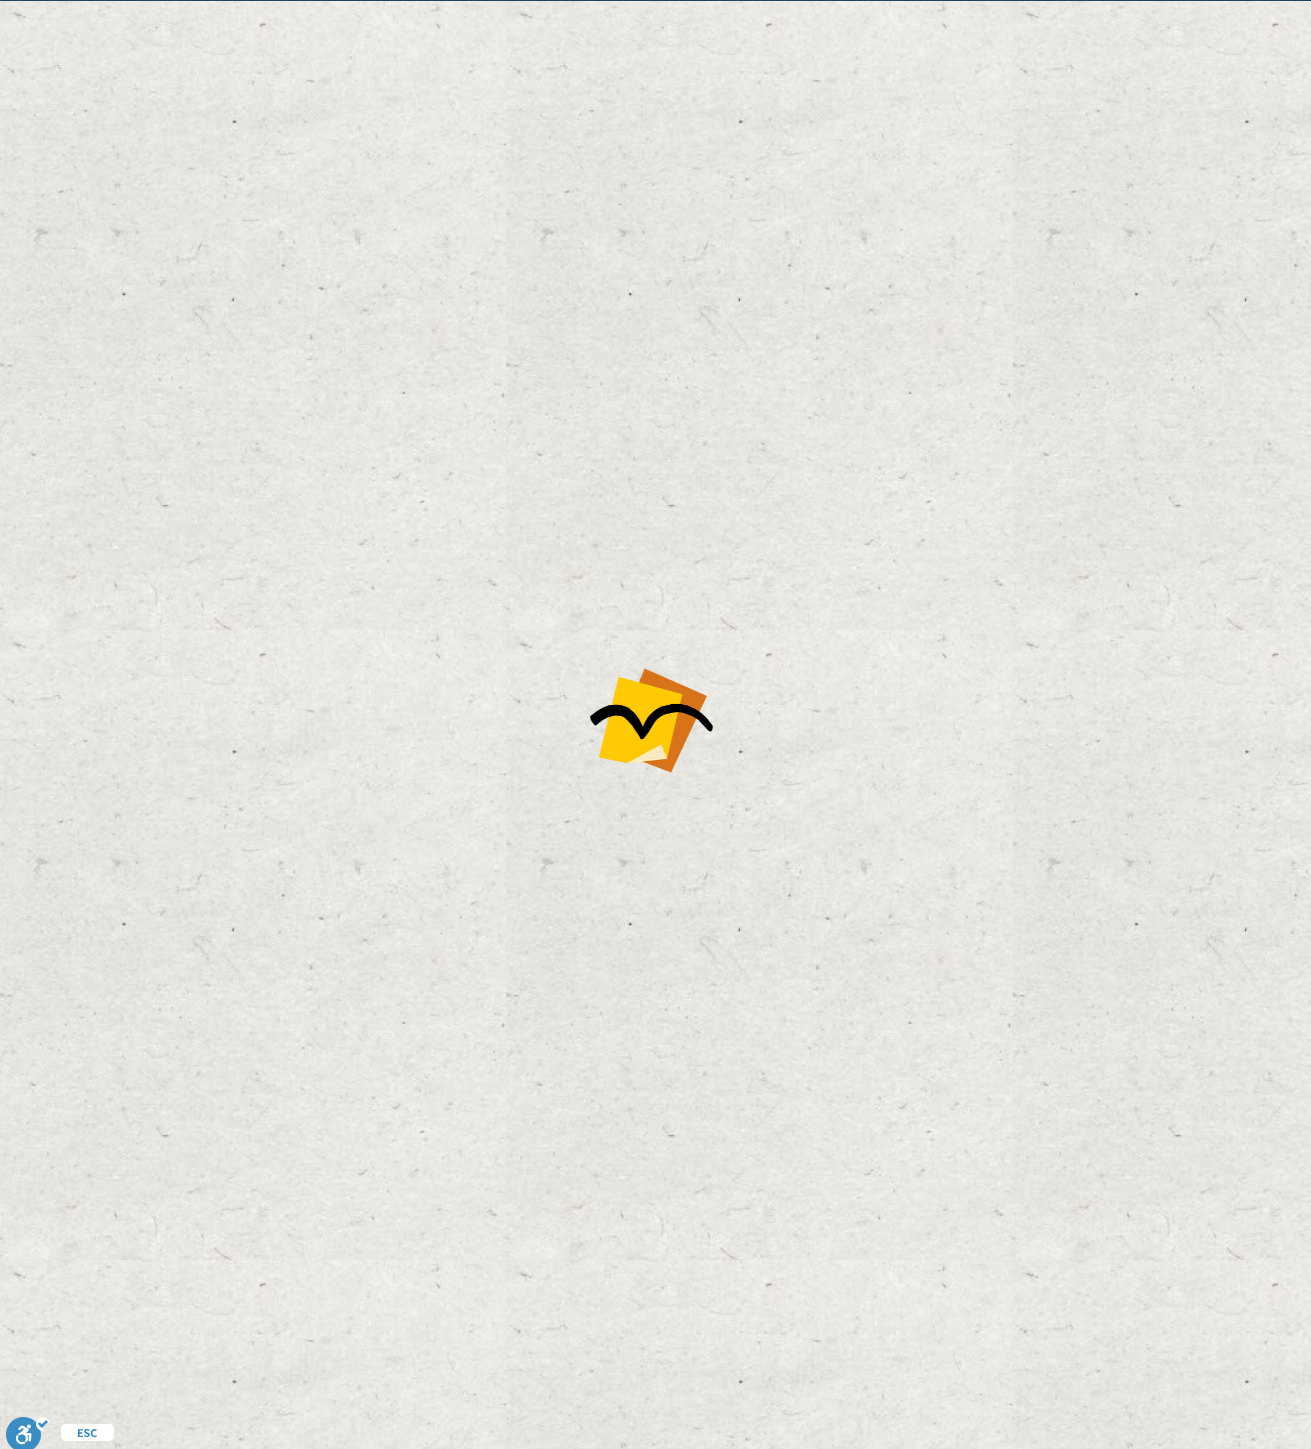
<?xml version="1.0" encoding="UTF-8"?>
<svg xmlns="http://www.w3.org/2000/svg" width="1311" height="1449">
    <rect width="100%" height="100%" fill="#FFFFFF"/>
    <image x="0" y="1" width="1311" height="1448" href="img_01.png"/>
    <image x="590" y="668" width="124" height="105" href="img_02.png"/>
    <rect x="0" y="0" width="1311" height="1" fill="#15495F"/>
    <image x="6" y="1417" width="44" height="32" href="img_03.png"/>
    <rect x="61" y="1424" width="53" height="17" rx="5" fill="#FFFFFF"/>
    <text x="77" y="1437" font-family="Assistant" font-size="12" font-weight="700" fill="#3A8DC2">ESC</text>
</svg>
